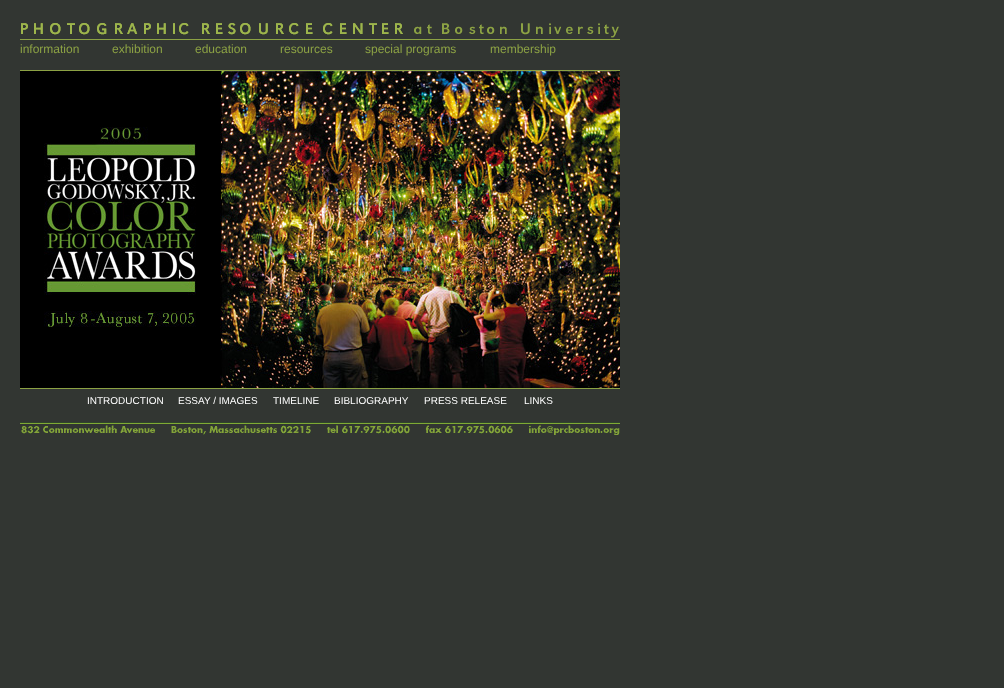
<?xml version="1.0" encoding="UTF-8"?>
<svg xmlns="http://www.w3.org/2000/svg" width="1004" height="688">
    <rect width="100%" height="100%" fill="#323632"/>
    <text x="20" y="53" font-family="Liberation Sans" font-size="12" fill="#8CA244">information</text>
    <text x="112" y="53" font-family="Liberation Sans" font-size="12" fill="#8CA244">exhibition</text>
    <text x="195" y="53" font-family="Liberation Sans" font-size="12" fill="#8CA244">education</text>
    <text x="280" y="53" font-family="Liberation Sans" font-size="12" fill="#8CA244">resources</text>
    <text x="365" y="53" font-family="Liberation Sans" font-size="12" fill="#8CA244">special programs</text>
    <text x="490" y="53" font-family="Liberation Sans" font-size="12" fill="#8CA244">membership</text>
    <image x="20" y="23" width="600" height="17" href="img_01.png"/>
    <rect x="20" y="70" width="600" height="1" fill="#8CA244"/>
    <image x="20" y="71" width="600" height="317" href="img_02.png"/>
    <rect x="20" y="388" width="600" height="1" fill="#8CA244"/>
    <text x="87" y="404" font-family="Liberation Sans" font-size="10" fill="#FFFFFF">INTRODUCTION</text>
    <text x="178" y="404" font-family="Liberation Sans" font-size="10" fill="#FFFFFF">ESSAY / IMAGES</text>
    <text x="273" y="404" font-family="Liberation Sans" font-size="10" fill="#FFFFFF">TIMELINE</text>
    <text x="334" y="404" font-family="Liberation Sans" font-size="10" fill="#FFFFFF">BIBLIOGRAPHY</text>
    <text x="424" y="404" font-family="Liberation Sans" font-size="10" fill="#FFFFFF">PRESS RELEASE</text>
    <text x="524" y="404" font-family="Liberation Sans" font-size="10" fill="#FFFFFF">LINKS</text>
    <image x="20" y="422" width="600" height="13" href="img_03.png"/>
</svg>
